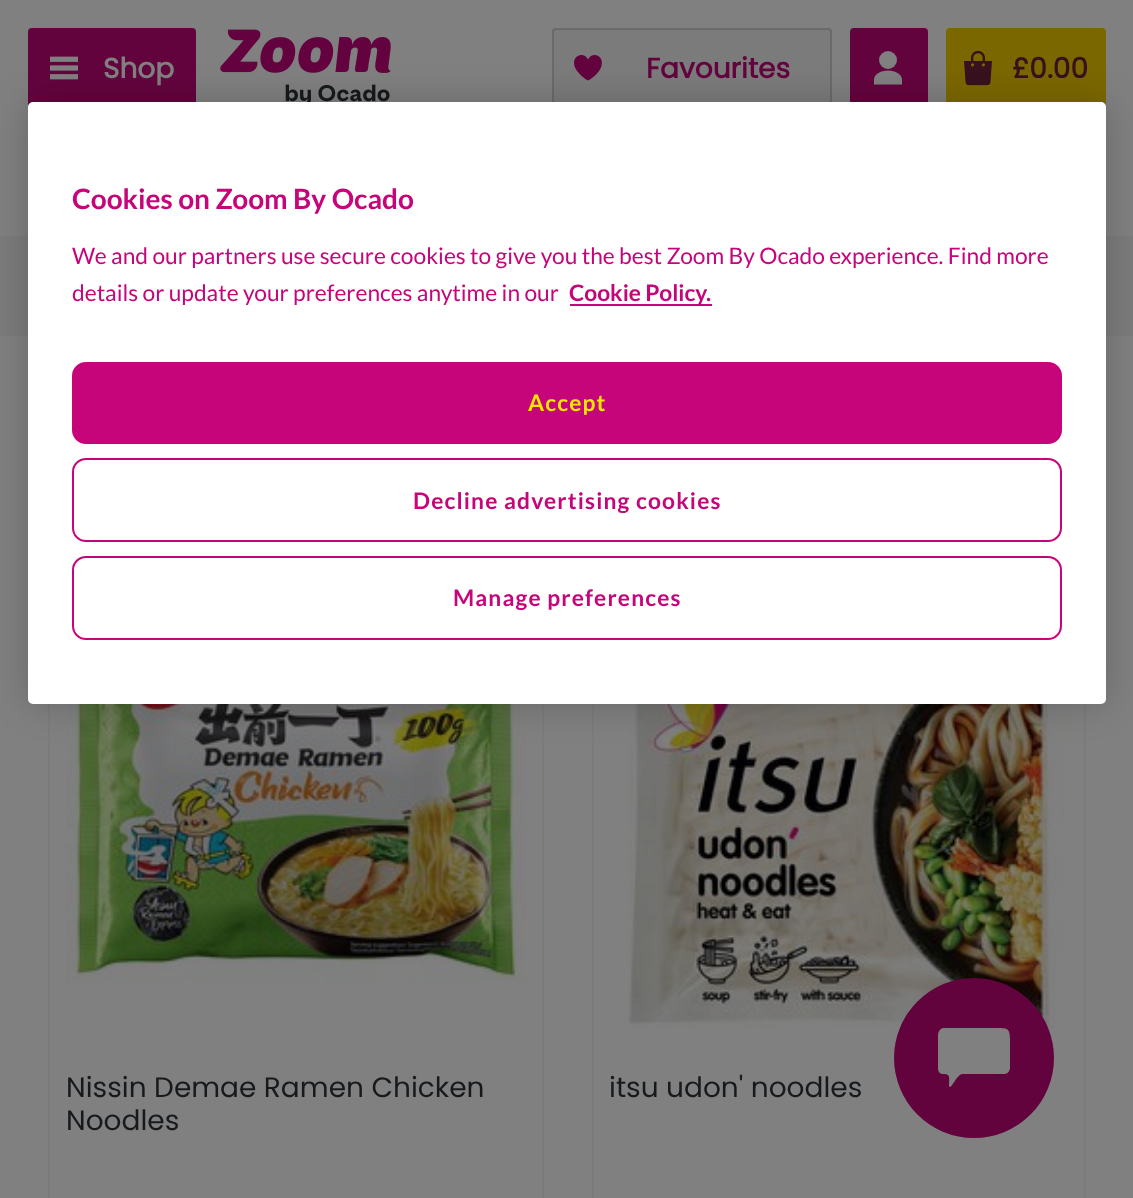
<?xml version="1.0" encoding="UTF-8"?>
<svg xmlns="http://www.w3.org/2000/svg" width="1133" height="1198">
    <defs>
        <clipPath id="clip1"><rect x="938" y="1022" width="72" height="72"/></clipPath>
        <filter id="blur1" x="-50%" y="-200%" width="200%" height="500%"><feGaussianBlur stdDeviation="18"/></filter>
    </defs>
    <rect width="100%" height="100%" fill="#808080"/>
    <rect x="28" y="28" width="168" height="80" rx="4" fill="#63033E"/>
    <image x="50" y="56" width="28" height="24" href="img_01.png"/>
    <text x="103" y="78" font-family="Poppins" font-size="28" font-weight="700" fill="#808080">Shop</text>
    <image x="220" y="29" width="171" height="73" href="img_02.png"/>
    <rect x="553" y="29" width="278" height="78" rx="3" fill="#7B7B7B" stroke="#6B6A6A" stroke-width="2"/>
    <path d="M 601.5 66 C 600.5 70.5 594.5 77.5 588 80.5 C 584 78.5 580 75 577.5 71.5 C 567 57.5 583.5 49.5 588 59.5 C 592 51 604.5 55 601.5 66" fill="#63033E" fill-rule="evenodd"/>
    <text x="646" y="78" font-family="Poppins" font-size="28" font-weight="700" fill="#63033E">Favourites</text>
    <rect x="850" y="28" width="78" height="80" rx="4" fill="#63033E"/>
    <circle cx="888" cy="60" r="9" fill="#808080"/>
    <path d="M 888 70.5 C 880.5 70.5 874 74.5 874 79.5 V 84.5 H 902 V 79.5 C 902 74.5 895.5 70.5 888 70.5" fill="#808080" fill-rule="evenodd"/>
    <rect x="946" y="28" width="160" height="80" rx="4" fill="#7B6700"/>
    <image x="964" y="50" width="28" height="36" href="img_03.png"/>
    <text x="1012" y="78" font-family="Poppins" font-size="28" font-weight="700" fill="#38101E">£0.00</text>
    <rect x="0" y="236" width="1133" height="100" fill="#7B7B7B"/>
    <rect x="49" y="499" width="494" height="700" fill="none" stroke="#7B7B7B" stroke-width="2"/>
    <image x="66" y="704" width="460" height="279" href="img_04.png"/>
    <text font-family="Poppins" font-size="28" fill="#171A1D">
        <tspan x="66" y="1097">Nissin Demae Ramen Chicken</tspan>
        <tspan x="66" y="1130">Noodles</tspan>
    </text>
    <rect x="593" y="499" width="492" height="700" fill="none" stroke="#7B7B7B" stroke-width="2"/>
    <image x="628" y="704" width="437" height="325" href="img_05.png"/>
    <text x="609" y="1097" font-family="Poppins" font-size="28" fill="#171A1D">itsu udon' noodles</text>
    <circle cx="974" cy="1058" r="80" fill="#63033E"/>
    <g clip-path="url(#clip1)">
        <path d="M 943 1074 C 951 1074 949 1078 949 1085 C 949 1085 949 1087 950 1087 C 952 1087 957 1075 962 1074 H 1005 C 1012 1073 1010 1062 1010 1057 V 1040 C 1010 1027 1007 1028 993 1028 H 943 C 937 1030 938 1036 938 1041 V 1063 C 938 1067 937 1074 943 1074" fill="#808080"/>
    </g>
    <rect x="28" y="102" width="1078" height="602" rx="5" fill="#000000" fill-opacity="0.2" filter="url(#blur1)"/>
    <rect x="28" y="102" width="1078" height="602" rx="5" fill="#FFFFFF"/>
    <text x="72" y="209" font-family="Lato" font-size="28" font-weight="700" fill="#C6057B">Cookies on Zoom By Ocado</text>
    <text font-family="Lato" font-size="22.75" fill="#C6057B">
        <tspan x="72" y="264">We and our partners use secure cookies to give you the best Zoom By Ocado experience. Find more</tspan>
        <tspan x="72" y="301">details or update your preferences anytime in our</tspan>
    </text>
    <rect x="570" y="304" width="142" height="2" fill="#C6057B"/>
    <text x="569" y="301" font-family="Lato" font-size="22.75" font-weight="700" fill="#C6057B">Cookie Policy.</text>
    <rect x="73" y="363" width="988" height="80" rx="13" fill="#C6057B" stroke="#C6057B" stroke-width="2"/>
    <text x="528" y="411" font-family="Lato" font-size="22.75" font-weight="700" letter-spacing="1.15" fill="#F8E600">Accept</text>
    <rect x="73" y="459" width="988" height="82" rx="13" fill="none" stroke="#C6057B" stroke-width="2"/>
    <text x="413" y="509" font-family="Lato" font-size="22.75" font-weight="700" letter-spacing="1.15" fill="#C6057B">Decline advertising cookies</text>
    <rect x="73" y="557" width="988" height="82" rx="13" fill="none" stroke="#C6057B" stroke-width="2"/>
    <text x="453" y="606" font-family="Lato" font-size="22.75" font-weight="700" letter-spacing="1.15" fill="#C6057B">Manage preferences</text>
</svg>
